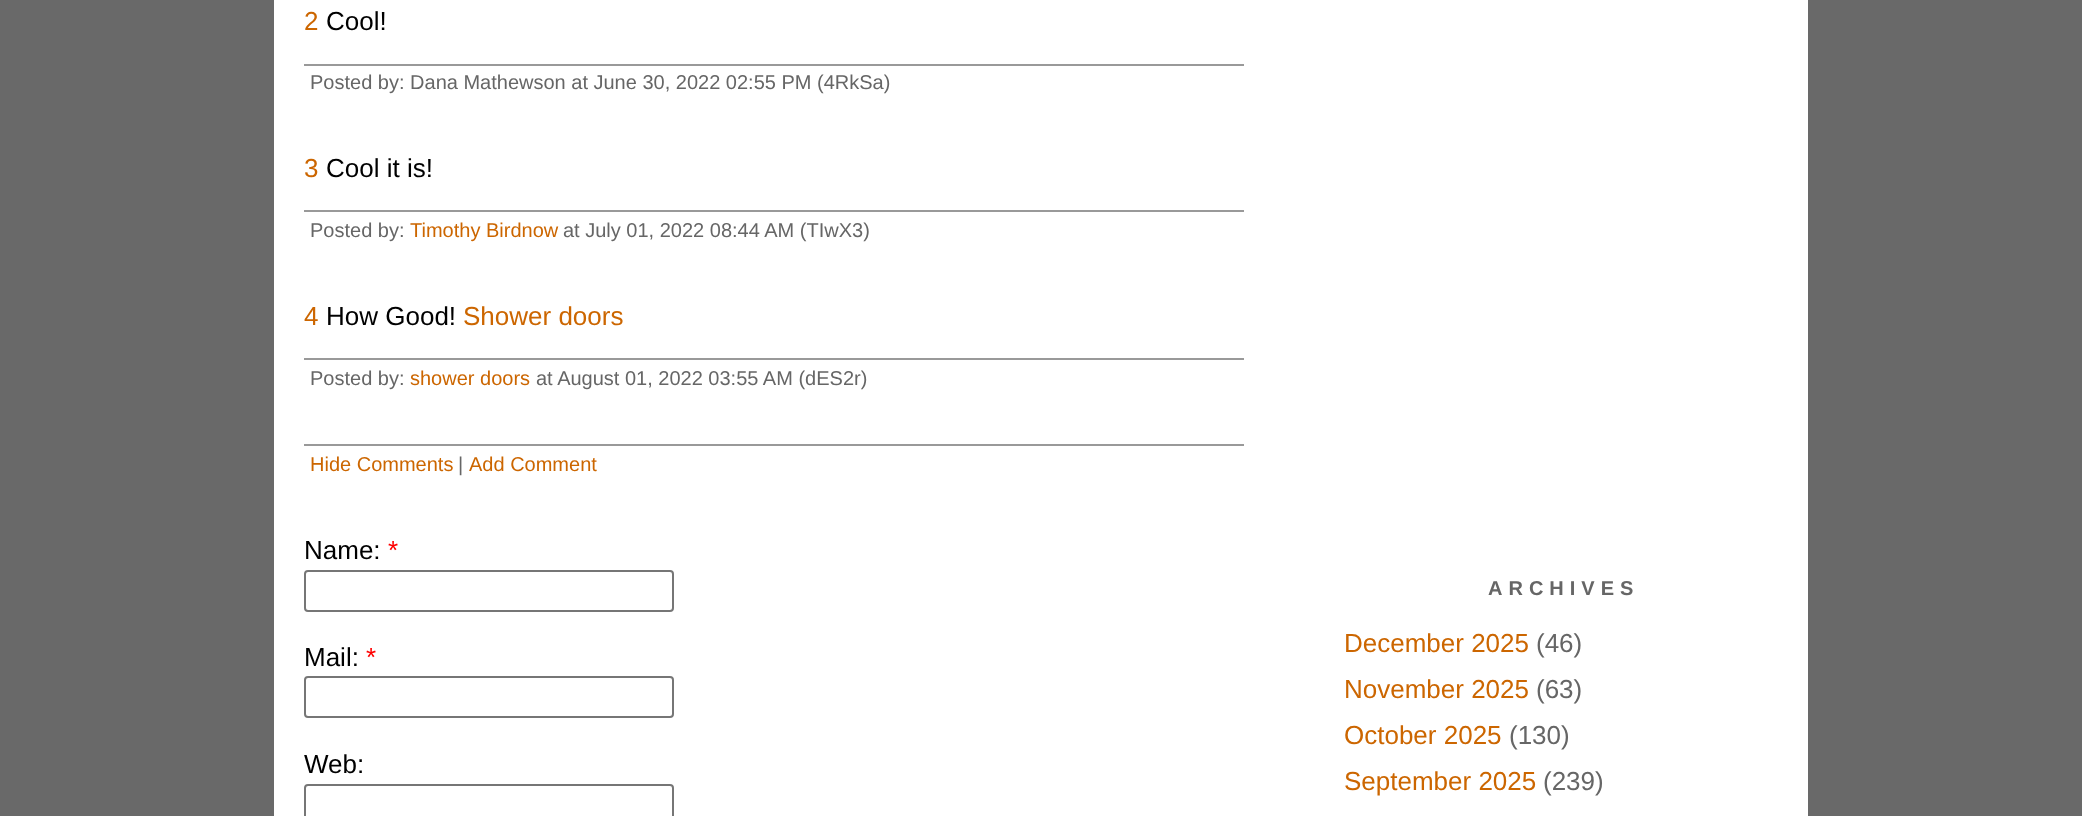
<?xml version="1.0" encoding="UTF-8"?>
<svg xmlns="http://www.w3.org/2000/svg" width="2082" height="816">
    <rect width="100%" height="100%" fill="#696969"/>
    <rect x="274" y="0" width="1534" height="816" fill="#FFFFFF"/>
    <text x="304" y="30" font-family="Liberation Sans" font-size="26" fill="#CC6600">2</text>
    <text x="326" y="30" font-family="Liberation Sans" font-size="26" fill="#000000">Cool!</text>
    <rect x="304" y="64" width="940" height="2" fill="#999999"/>
    <text x="310" y="89" font-family="Liberation Sans" font-size="20" fill="#666666">Posted by: Dana Mathewson at June 30, 2022 02:55 PM (4RkSa)</text>
    <text x="304" y="177" font-family="Liberation Sans" font-size="26" fill="#CC6600">3</text>
    <text x="326" y="177" font-family="Liberation Sans" font-size="26" fill="#000000">Cool it is!</text>
    <rect x="304" y="210" width="940" height="2" fill="#999999"/>
    <text x="310" y="237" font-family="Liberation Sans" font-size="20" fill="#666666">Posted by:</text>
    <text x="410" y="237" font-family="Liberation Sans" font-size="20" fill="#CC6600">Timothy Birdnow</text>
    <text x="563" y="237" font-family="Liberation Sans" font-size="20" fill="#666666">at July 01, 2022 08:44 AM (TIwX3)</text>
    <text x="304" y="325" font-family="Liberation Sans" font-size="26" fill="#CC6600">4</text>
    <text x="326" y="325" font-family="Liberation Sans" font-size="26" fill="#000000">How Good!</text>
    <text x="463" y="325" font-family="Liberation Sans" font-size="26" fill="#CC6600">Shower doors</text>
    <rect x="304" y="358" width="940" height="2" fill="#999999"/>
    <text x="310" y="385" font-family="Liberation Sans" font-size="20" fill="#666666">Posted by:</text>
    <text x="410" y="385" font-family="Liberation Sans" font-size="20" fill="#CC6600">shower doors</text>
    <text x="536" y="385" font-family="Liberation Sans" font-size="20" fill="#666666">at August 01, 2022 03:55 AM (dES2r)</text>
    <rect x="304" y="444" width="940" height="2" fill="#999999"/>
    <text x="310" y="471" font-family="Liberation Sans" font-size="20" fill="#CC6600">Hide Comments</text>
    <text x="458" y="471" font-family="Liberation Sans" font-size="20" fill="#666666">|</text>
    <text x="469" y="471" font-family="Liberation Sans" font-size="20" fill="#CC6600">Add Comment</text>
    <text x="304" y="559" font-family="Liberation Sans" font-size="26" fill="#000000">Name:</text>
    <text x="388" y="559" font-family="Liberation Sans" font-size="26" fill="#FF0000">*</text>
    <rect x="305" y="571" width="368" height="40" rx="3" fill="none" stroke="#767676" stroke-width="2"/>
    <text x="304" y="666" font-family="Liberation Sans" font-size="26" fill="#000000">Mail:</text>
    <text x="366" y="666" font-family="Liberation Sans" font-size="26" fill="#FF0000">*</text>
    <rect x="305" y="677" width="368" height="40" rx="3" fill="none" stroke="#767676" stroke-width="2"/>
    <text x="304" y="773" font-family="Liberation Sans" font-size="26" fill="#000000">Web:</text>
    <rect x="305" y="785" width="368" height="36" rx="3" fill="none" stroke="#767676" stroke-width="2"/>
    <text x="1488" y="595" font-family="Liberation Sans" font-size="20" font-weight="700" letter-spacing="6" fill="#666666">ARCHIVES</text>
    <text x="1344" y="652" font-family="Liberation Sans" font-size="26" fill="#CC6600">December 2025</text>
    <text x="1536" y="652" font-family="Liberation Sans" font-size="26" fill="#666666">(46)</text>
    <text x="1344" y="698" font-family="Liberation Sans" font-size="26" fill="#CC6600">November 2025</text>
    <text x="1536" y="698" font-family="Liberation Sans" font-size="26" fill="#666666">(63)</text>
    <text x="1344" y="744" font-family="Liberation Sans" font-size="26" fill="#CC6600">October 2025</text>
    <text x="1509" y="744" font-family="Liberation Sans" font-size="26" fill="#666666">(130)</text>
    <text x="1344" y="790" font-family="Liberation Sans" font-size="26" fill="#CC6600">September 2025</text>
    <text x="1543" y="790" font-family="Liberation Sans" font-size="26" fill="#666666">(239)</text>
</svg>
